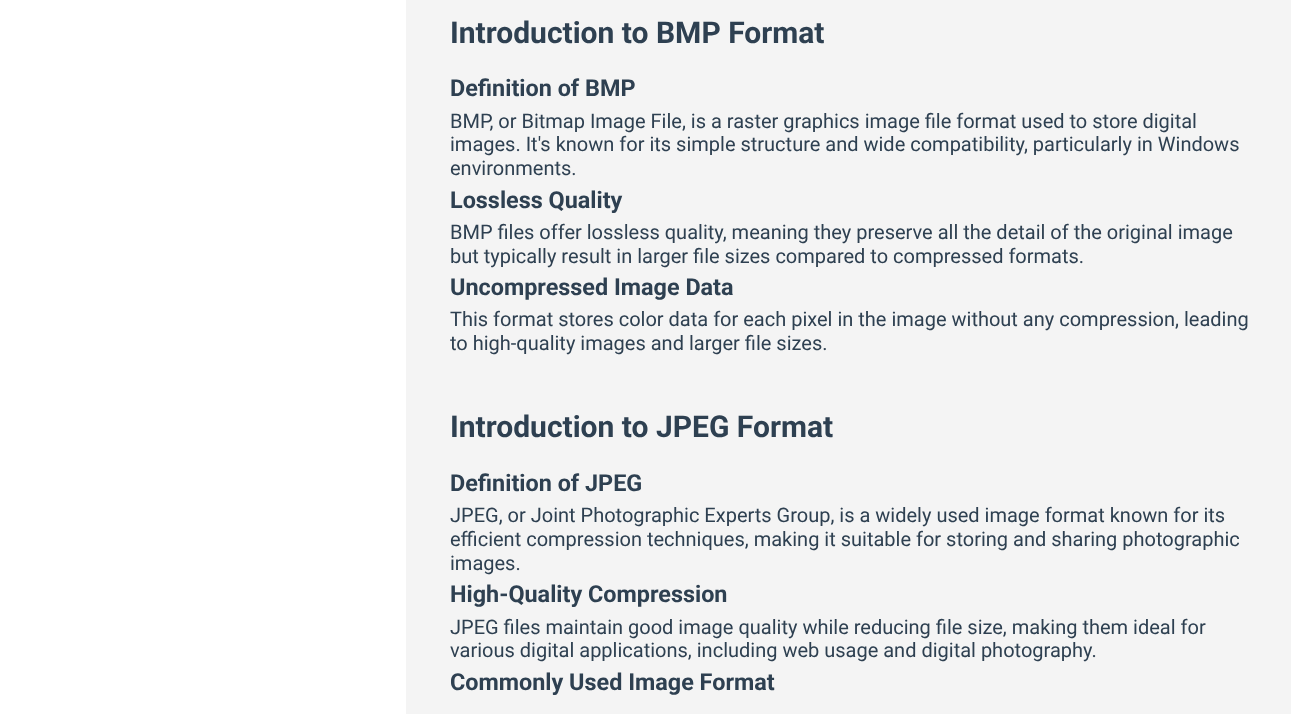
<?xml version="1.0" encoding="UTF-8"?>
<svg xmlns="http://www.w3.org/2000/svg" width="1297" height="714">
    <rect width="100%" height="100%" fill="#FFFFFF"/>
    <rect x="406" y="0" width="885" height="714" fill="#F4F4F4"/>
    <text x="450" y="43" font-family="Roboto" font-size="30" font-weight="700" fill="#2E4051">Introduction to BMP Format</text>
    <text x="450" y="96" font-family="Roboto" font-size="23.4" font-weight="700" fill="#2E4051">Definition of BMP</text>
    <text font-family="Roboto" font-size="20" fill="#2E4051">
        <tspan x="450" y="128">BMP, or Bitmap Image File, is a raster graphics image file format used to store digital</tspan>
        <tspan x="450" y="151">images. It's known for its simple structure and wide compatibility, particularly in Windows</tspan>
        <tspan x="450" y="175">environments.</tspan>
    </text>
    <text x="450" y="208" font-family="Roboto" font-size="23.4" font-weight="700" fill="#2E4051">Lossless Quality</text>
    <text font-family="Roboto" font-size="20" fill="#2E4051">
        <tspan x="450" y="239">BMP files offer lossless quality, meaning they preserve all the detail of the original image</tspan>
        <tspan x="450" y="263">but typically result in larger file sizes compared to compressed formats.</tspan>
    </text>
    <text x="450" y="295" font-family="Roboto" font-size="23.4" font-weight="700" fill="#2E4051">Uncompressed Image Data</text>
    <text font-family="Roboto" font-size="20" fill="#2E4051">
        <tspan x="450" y="326">This format stores color data for each pixel in the image without any compression, leading</tspan>
        <tspan x="450" y="350">to high-quality images and larger file sizes.</tspan>
    </text>
    <text x="450" y="437" font-family="Roboto" font-size="30" font-weight="700" fill="#2E4051">Introduction to JPEG Format</text>
    <text x="450" y="491" font-family="Roboto" font-size="23.4" font-weight="700" fill="#2E4051">Definition of JPEG</text>
    <text font-family="Roboto" font-size="20" fill="#2E4051">
        <tspan x="450" y="522">JPEG, or Joint Photographic Experts Group, is a widely used image format known for its</tspan>
        <tspan x="450" y="546">efficient compression techniques, making it suitable for storing and sharing photographic</tspan>
        <tspan x="450" y="570">images.</tspan>
    </text>
    <text x="450" y="602" font-family="Roboto" font-size="23.4" font-weight="700" fill="#2E4051">High-Quality Compression</text>
    <text font-family="Roboto" font-size="20" fill="#2E4051">
        <tspan x="450" y="634">JPEG files maintain good image quality while reducing file size, making them ideal for</tspan>
        <tspan x="450" y="657">various digital applications, including web usage and digital photography.</tspan>
    </text>
    <text x="450" y="690" font-family="Roboto" font-size="23.4" font-weight="700" fill="#2E4051">Commonly Used Image Format</text>
</svg>
